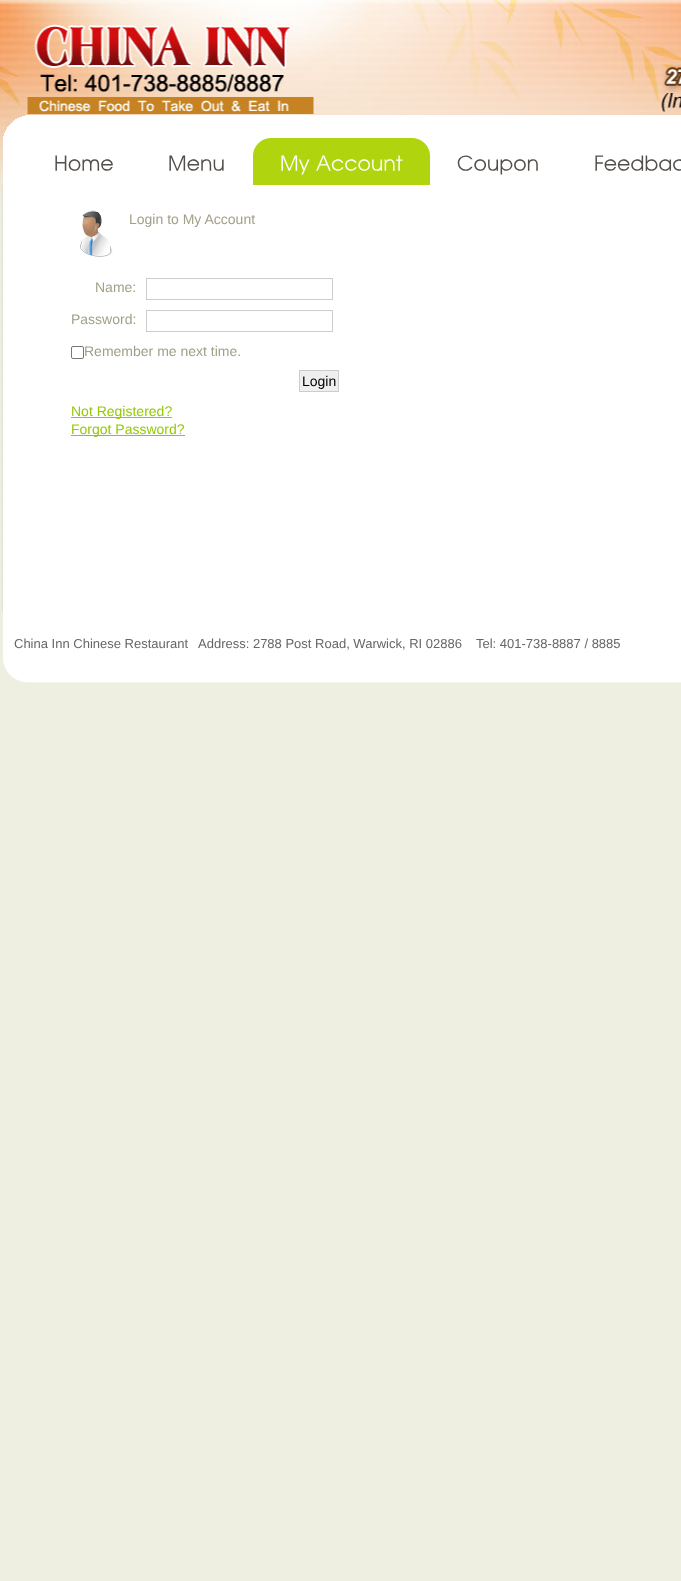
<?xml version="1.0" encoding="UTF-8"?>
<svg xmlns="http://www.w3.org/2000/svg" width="681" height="1581">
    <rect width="100%" height="100%" fill="#EEEEE1"/>
    <image x="0" y="0" width="681" height="208" href="img_01.png"/>
    <image x="3" y="115" width="678" height="70" href="img_02.png"/>
    <image x="55" y="155" width="58" height="16" href="img_03.png"/>
    <image x="169" y="155" width="55" height="16" href="img_04.png"/>
    <rect x="253" y="138" width="177" height="47" fill="#B0D50F"/>
    <image x="413" y="138" width="17" height="18" href="img_05.png"/>
    <image x="253" y="138" width="17" height="18" href="img_06.png"/>
    <image x="281" y="155" width="29" height="20" href="img_07.png"/>
    <image x="316" y="155" width="87" height="16" href="img_08.png"/>
    <image x="457" y="155" width="81" height="20" href="img_09.png"/>
    <image x="595" y="155" width="86" height="16" href="img_10.png"/>
    <image x="1" y="185" width="680" height="427" href="img_11.png"/>
    <image x="80" y="210" width="33" height="47" href="img_12.png"/>
    <text x="129" y="224" font-family="Liberation Sans" font-size="14" fill="#A29F87">Login to My Account</text>
    <text x="95" y="292" font-family="Liberation Sans" font-size="14" fill="#A29F87">Name:</text>
    <rect x="146.5" y="278.5" width="186" height="21" fill="none" stroke="#CCCCCC"/>
    <text x="71" y="324" font-family="Liberation Sans" font-size="14" fill="#A29F87">Password:</text>
    <rect x="146.5" y="310.5" width="186" height="21" fill="none" stroke="#CCCCCC"/>
    <rect x="71.5" y="346.5" width="12" height="12" rx="1.5" fill="none" stroke="#767676"/>
    <text x="84" y="356" font-family="Liberation Sans" font-size="14" fill="#A29F87">Remember me next time.</text>
    <rect x="299.5" y="370.5" width="39" height="21" fill="#EFEFEF" stroke="#CCCCCC"/>
    <text x="302" y="386" font-family="Liberation Sans" font-size="14" fill="#000000">Login</text>
    <rect x="71" y="417" width="101" height="1" fill="#94C807"/>
    <text x="71" y="416" font-family="Liberation Sans" font-size="14" fill="#94C807">Not Registered?</text>
    <rect x="71" y="435" width="114" height="1" fill="#94C807"/>
    <text x="71" y="434" font-family="Liberation Sans" font-size="14" fill="#94C807">Forgot Password?</text>
    <image x="3" y="612" width="678" height="71" href="img_13.png"/>
    <text x="14" y="648" font-family="Liberation Sans" font-size="13" fill="#666666">China Inn Chinese Restaurant</text>
    <text x="198" y="648" font-family="Liberation Sans" font-size="13" fill="#666666">Address: 2788 Post Road, Warwick, RI 02886</text>
    <text x="476" y="648" font-family="Liberation Sans" font-size="13" fill="#666666">Tel: 401-738-8887 / 8885</text>
</svg>
